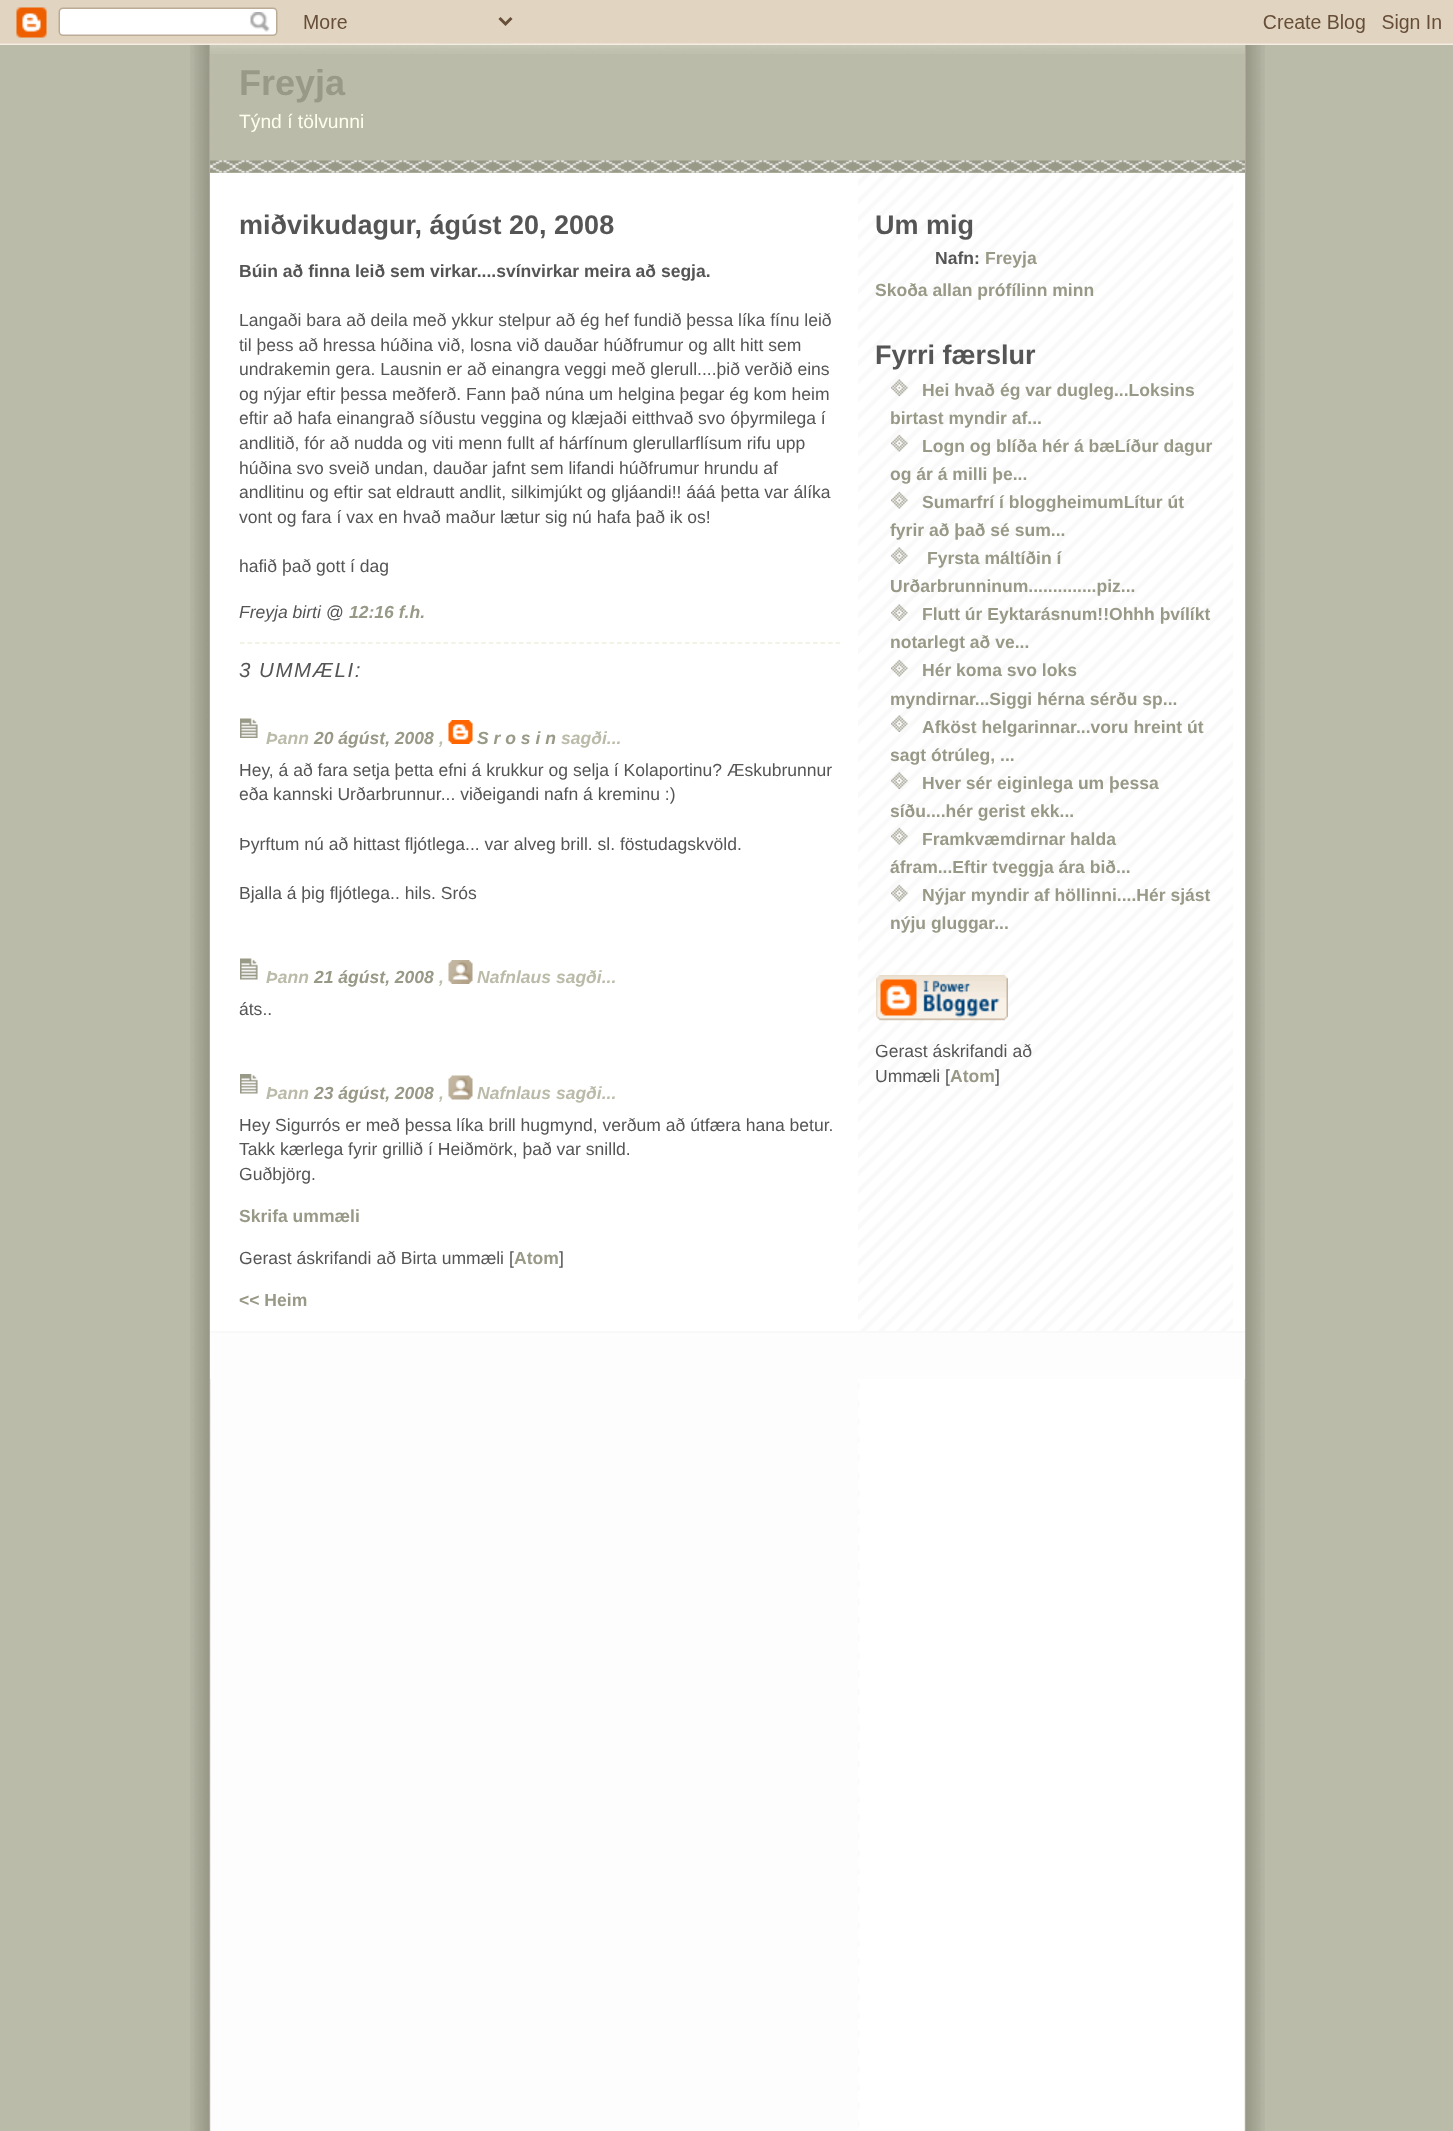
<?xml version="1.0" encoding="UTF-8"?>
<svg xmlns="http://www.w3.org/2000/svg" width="1453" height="2131">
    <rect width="100%" height="100%" fill="#BBBBAA"/>
    <image x="190" y="43" width="1075" height="2088" href="img_01.png"/>
    <image x="210" y="43" width="1035" height="11" href="img_05.png"/>
    <image x="0" y="0" width="1453" height="45" href="img_02.png"/>
    <rect x="210" y="173" width="1035" height="1158" fill="#FFFFFF"/>
    <image x="858" y="173" width="375" height="1158" href="img_03.png"/>
    <rect x="210" y="54" width="1035" height="119" fill="#BBBBAA"/>
    <image x="210" y="160" width="1035" height="13" href="img_04.png"/>
    <text x="239" y="95" font-family="Liberation Sans" font-size="36" font-weight="700" fill="#999988">Freyja</text>
    <text x="239" y="128" font-family="Liberation Sans" font-size="19.25" fill="#FFFFEE">Týnd í tölvunni</text>
    <text x="239" y="234" font-family="Liberation Sans" font-size="27" font-weight="700" fill="#555555">miðvikudagur, ágúst 20, 2008</text>
    <text x="239" y="277" font-family="Liberation Sans" font-size="17.55" font-weight="700" fill="#555555">Búin að finna leið sem virkar....svínvirkar meira að segja.</text>
    <text font-family="Liberation Sans" font-size="17.55" fill="#555555">
        <tspan x="239" y="326">Langaði bara að deila með ykkur stelpur að ég hef fundið þessa líka fínu leið</tspan>
        <tspan x="239" y="351">til þess að hressa húðina við, losna við dauðar húðfrumur og allt hitt sem</tspan>
        <tspan x="239" y="375">undrakemin gera. Lausnin er að einangra veggi með glerull....þið verðið eins</tspan>
        <tspan x="239" y="400">og nýjar eftir þessa meðferð. Fann það núna um helgina þegar ég kom heim</tspan>
        <tspan x="239" y="424">eftir að hafa einangrað síðustu veggina og klæjaði eitthvað svo óþyrmilega í</tspan>
        <tspan x="239" y="449">andlitið, fór að nudda og viti menn fullt af hárfínum glerullarflísum rifu upp</tspan>
        <tspan x="239" y="474">húðina svo sveið undan, dauðar jafnt sem lifandi húðfrumur hrundu af</tspan>
        <tspan x="239" y="498">andlitinu og eftir sat eldrautt andlit, silkimjúkt og gljáandi!! ááá þetta var álíka</tspan>
        <tspan x="239" y="523">vont og fara í vax en hvað maður lætur sig nú hafa það ik os!</tspan>
    </text>
    <text x="239" y="572" font-family="Liberation Sans" font-size="17.55" fill="#555555">hafið það gott í dag</text>
    <text x="239" y="618" font-family="Liberation Sans" font-size="17.55" font-style="italic" fill="#555555">Freyja birti @</text>
    <text x="349" y="618" font-family="Liberation Sans" font-size="17.55" font-weight="700" font-style="italic" fill="#999988">12:16 f.h.</text>
    <path d="M 240 643 H 840" fill="none" stroke="#EEEEDD" stroke-width="1.5" stroke-dasharray="4.5 3.04"/>
    <text x="239" y="677" font-family="Liberation Sans" font-size="20.5" font-style="italic" letter-spacing="1.5" fill="#555555">3 UMMÆLI:</text>
    <image x="240" y="718" width="18" height="20" href="img_06.png"/>
    <text x="266" y="744" font-family="Liberation Sans" font-size="17.55" font-weight="700" font-style="italic" fill="#BBBBAA">Þann</text>
    <text x="314" y="744" font-family="Liberation Sans" font-size="17.55" font-weight="700" font-style="italic" fill="#999988">20 ágúst, 2008</text>
    <text x="439" y="744" font-family="Liberation Sans" font-size="17.55" font-weight="700" font-style="italic" fill="#BBBBAA">,</text>
    <image x="448" y="720" width="25" height="24" href="img_07.png"/>
    <text x="477" y="744" font-family="Liberation Sans" font-size="17.55" font-weight="700" font-style="italic" fill="#999988">S r o s i n</text>
    <text x="561" y="744" font-family="Liberation Sans" font-size="17.55" font-weight="700" font-style="italic" fill="#BBBBAA">sagði...</text>
    <text font-family="Liberation Sans" font-size="17.55" fill="#555555">
        <tspan x="239" y="776">Hey, á að fara setja þetta efni á krukkur og selja í Kolaportinu? Æskubrunnur</tspan>
        <tspan x="239" y="800">eða kannski Urðarbrunnur... viðeigandi nafn á kreminu :)</tspan>
    </text>
    <text x="239" y="850" font-family="Liberation Sans" font-size="17.55" fill="#555555">Þyrftum nú að hittast fljótlega... var alveg brill. sl. föstudagskvöld.</text>
    <text x="239" y="899" font-family="Liberation Sans" font-size="17.55" fill="#555555">Bjalla á þig fljótlega.. hils. Srós</text>
    <image x="240" y="958" width="18" height="22" href="img_08.png"/>
    <text x="266" y="983" font-family="Liberation Sans" font-size="17.55" font-weight="700" font-style="italic" fill="#BBBBAA">Þann</text>
    <text x="314" y="983" font-family="Liberation Sans" font-size="17.55" font-weight="700" font-style="italic" fill="#999988">21 ágúst, 2008</text>
    <text x="439" y="983" font-family="Liberation Sans" font-size="17.55" font-weight="700" font-style="italic" fill="#BBBBAA">,</text>
    <image x="448" y="960" width="25" height="24" href="img_09.png"/>
    <text x="477" y="983" font-family="Liberation Sans" font-size="17.55" font-weight="700" font-style="italic" fill="#BBBBAA">Nafnlaus sagði...</text>
    <text x="239" y="1015" font-family="Liberation Sans" font-size="17.55" fill="#555555">áts..</text>
    <image x="240" y="1074" width="18" height="20" href="img_10.png"/>
    <text x="266" y="1099" font-family="Liberation Sans" font-size="17.55" font-weight="700" font-style="italic" fill="#BBBBAA">Þann</text>
    <text x="314" y="1099" font-family="Liberation Sans" font-size="17.55" font-weight="700" font-style="italic" fill="#999988">23 ágúst, 2008</text>
    <text x="439" y="1099" font-family="Liberation Sans" font-size="17.55" font-weight="700" font-style="italic" fill="#BBBBAA">,</text>
    <image x="448" y="1075" width="25" height="25" href="img_11.png"/>
    <text x="477" y="1099" font-family="Liberation Sans" font-size="17.55" font-weight="700" font-style="italic" fill="#BBBBAA">Nafnlaus sagði...</text>
    <text font-family="Liberation Sans" font-size="17.55" fill="#555555">
        <tspan x="239" y="1131">Hey Sigurrós er með þessa líka brill hugmynd, verðum að útfæra hana betur.</tspan>
        <tspan x="239" y="1155">Takk kærlega fyrir grillið í Heiðmörk, það var snilld.</tspan>
        <tspan x="239" y="1180">Guðbjörg.</tspan>
    </text>
    <text x="239" y="1222" font-family="Liberation Sans" font-size="17.55" font-weight="700" fill="#999988">Skrifa ummæli</text>
    <text x="239" y="1264" font-family="Liberation Sans" font-size="17.55" fill="#555555">Gerast áskrifandi að Birta ummæli [</text>
    <text x="514" y="1264" font-family="Liberation Sans" font-size="17.55" font-weight="700" fill="#999988">Atom</text>
    <text x="559" y="1264" font-family="Liberation Sans" font-size="17.55" fill="#555555">]</text>
    <text x="239" y="1306" font-family="Liberation Sans" font-size="17.55" font-weight="700" fill="#999988">&lt;&lt; Heim</text>
    <text x="875" y="234" font-family="Liberation Sans" font-size="27" font-weight="700" fill="#555555">Um mig</text>
    <text x="935" y="264" font-family="Liberation Sans" font-size="17.55" font-weight="700" fill="#555555">Nafn:</text>
    <text x="985" y="264" font-family="Liberation Sans" font-size="17.55" font-weight="700" fill="#999988">Freyja</text>
    <text x="875" y="296" font-family="Liberation Sans" font-size="17.55" font-weight="700" fill="#999988">Skoða allan prófílinn minn</text>
    <text x="875" y="364" font-family="Liberation Sans" font-size="27" font-weight="700" fill="#555555">Fyrri færslur</text>
    <image x="891" y="379" width="17" height="17" href="img_12.png"/>
    <text x="922" y="396" font-family="Liberation Sans" font-size="17.55" font-weight="700" fill="#999988">Hei hvað ég var dugleg...Loksins</text>
    <text x="890" y="424" font-family="Liberation Sans" font-size="17.55" font-weight="700" fill="#999988">birtast myndir af...</text>
    <image x="891" y="434" width="17" height="18" href="img_13.png"/>
    <text x="922" y="452" font-family="Liberation Sans" font-size="17.55" font-weight="700" fill="#999988">Logn og blíða hér á bæLíður dagur</text>
    <text x="890" y="480" font-family="Liberation Sans" font-size="17.55" font-weight="700" fill="#999988">og ár á milli þe...</text>
    <image x="891" y="491" width="17" height="18" href="img_14.png"/>
    <text x="922" y="508" font-family="Liberation Sans" font-size="17.55" font-weight="700" fill="#999988">Sumarfrí í bloggheimumLítur út</text>
    <text x="890" y="536" font-family="Liberation Sans" font-size="17.55" font-weight="700" fill="#999988">fyrir að það sé sum...</text>
    <image x="891" y="547" width="17" height="17" href="img_15.png"/>
    <text x="927" y="564" font-family="Liberation Sans" font-size="17.55" font-weight="700" fill="#999988">Fyrsta máltíðin í</text>
    <text x="890" y="592" font-family="Liberation Sans" font-size="17.55" font-weight="700" fill="#999988">Urðarbrunninum..............piz...</text>
    <image x="891" y="604" width="17" height="17" href="img_16.png"/>
    <text x="922" y="620" font-family="Liberation Sans" font-size="17.55" font-weight="700" fill="#999988">Flutt úr Eyktarásnum!!Ohhh þvílíkt</text>
    <text x="890" y="648" font-family="Liberation Sans" font-size="17.55" font-weight="700" fill="#999988">notarlegt að ve...</text>
    <image x="891" y="659" width="17" height="18" href="img_17.png"/>
    <text x="922" y="676" font-family="Liberation Sans" font-size="17.55" font-weight="700" fill="#999988">Hér koma svo loks</text>
    <text x="890" y="705" font-family="Liberation Sans" font-size="17.55" font-weight="700" fill="#999988">myndirnar...Siggi hérna sérðu sp...</text>
    <image x="891" y="715" width="17" height="17" href="img_18.png"/>
    <text x="922" y="733" font-family="Liberation Sans" font-size="17.55" font-weight="700" fill="#999988">Afköst helgarinnar...voru hreint út</text>
    <text x="890" y="761" font-family="Liberation Sans" font-size="17.55" font-weight="700" fill="#999988">sagt ótrúleg, ...</text>
    <image x="891" y="772" width="17" height="17" href="img_19.png"/>
    <text x="922" y="789" font-family="Liberation Sans" font-size="17.55" font-weight="700" fill="#999988">Hver sér eiginlega um þessa</text>
    <text x="890" y="817" font-family="Liberation Sans" font-size="17.55" font-weight="700" fill="#999988">síðu....hér gerist ekk...</text>
    <image x="891" y="827" width="17" height="18" href="img_20.png"/>
    <text x="922" y="845" font-family="Liberation Sans" font-size="17.55" font-weight="700" fill="#999988">Framkvæmdirnar halda</text>
    <text x="890" y="873" font-family="Liberation Sans" font-size="17.55" font-weight="700" fill="#999988">áfram...Eftir tveggja ára bið...</text>
    <image x="891" y="884" width="17" height="18" href="img_21.png"/>
    <text x="922" y="901" font-family="Liberation Sans" font-size="17.55" font-weight="700" fill="#999988">Nýjar myndir af höllinni....Hér sjást</text>
    <text x="890" y="929" font-family="Liberation Sans" font-size="17.55" font-weight="700" fill="#999988">nýju gluggar...</text>
    <image x="876" y="975" width="132" height="46" href="img_22.png"/>
    <text font-family="Liberation Sans" font-size="17.55" fill="#555555">
        <tspan x="875" y="1057">Gerast áskrifandi að</tspan>
        <tspan x="875" y="1082">Ummæli [</tspan>
    </text>
    <text x="950" y="1082" font-family="Liberation Sans" font-size="17.55" font-weight="700" fill="#999988">Atom</text>
    <text x="995" y="1082" font-family="Liberation Sans" font-size="17.55" fill="#555555">]</text>
    <rect x="210" y="1333" width="1035" height="46" fill="#FDFDFD"/>
    <rect x="210" y="1331" width="1035" height="2" fill="#F9F9F9"/>
</svg>
